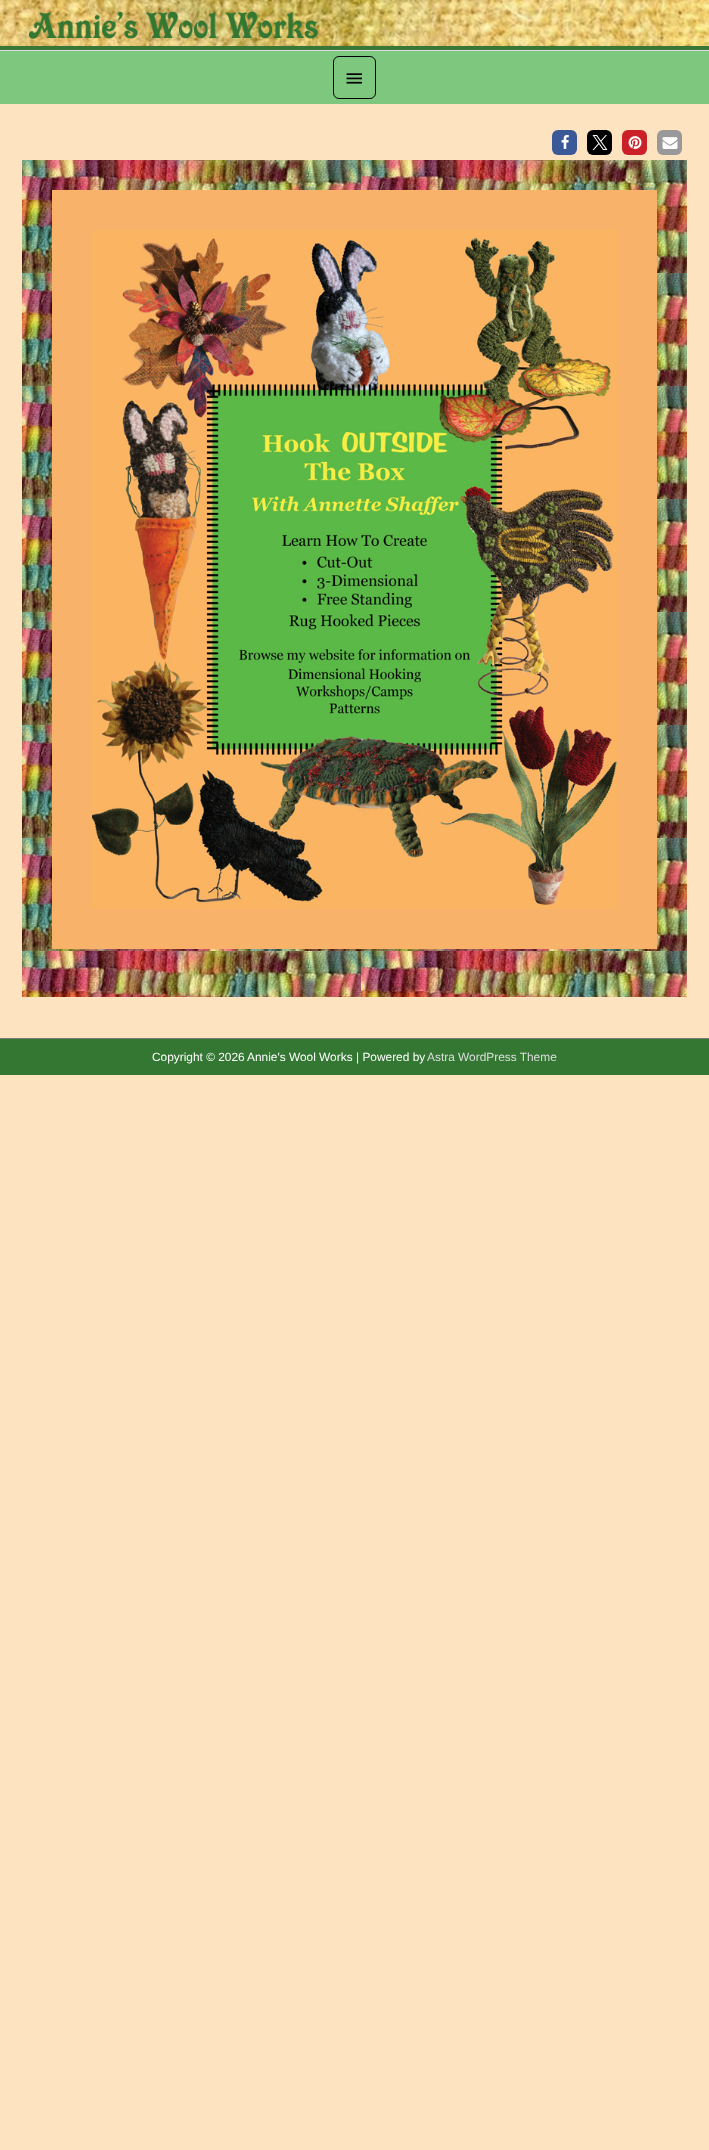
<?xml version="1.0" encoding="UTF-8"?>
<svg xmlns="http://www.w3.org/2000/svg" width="709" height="2150">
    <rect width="100%" height="100%" fill="#FDE3C0"/>
    <image x="0" y="0" width="709" height="46" href="img_01.png"/>
    <rect x="0" y="46" width="709" height="4" fill="#387738"/>
    <image x="28" y="11" width="291" height="28" href="img_02.png"/>
    <rect x="0" y="51" width="709" height="53" fill="#7EC77F"/>
    <rect x="0" y="50" width="709" height="1" fill="#DDDDDD"/>
    <rect x="333.5" y="56.5" width="42" height="42" rx="5.5" fill="none" stroke="#000000"/>
    <image x="346" y="73" width="16" height="11" href="img_03.png"/>
    <rect x="552" y="130" width="25" height="25" rx="6" fill="#3B5998"/>
    <image x="561" y="135" width="8" height="14" href="img_04.png"/>
    <rect x="587" y="130" width="25" height="25" rx="6" fill="#000000"/>
    <image x="592" y="135" width="16" height="15" href="img_05.png"/>
    <rect x="622" y="130" width="25" height="25" rx="6" fill="#CB2027"/>
    <image x="628" y="136" width="14" height="13" href="img_06.png"/>
    <rect x="657" y="130" width="25" height="25" rx="6" fill="#999999"/>
    <image x="662" y="137" width="16" height="12" href="img_07.png"/>
    <image x="22" y="160" width="665" height="837" href="img_08.png"/>
    <rect x="52" y="190" width="605" height="759" fill="#F9B26A"/>
    <image x="92" y="230" width="525" height="679" href="img_09.png"/>
    <rect x="0" y="1038" width="709" height="1" fill="#7A7A7A"/>
    <rect x="0" y="1039" width="709" height="36" fill="#337733"/>
    <text x="152" y="1061" font-family="Liberation Sans" font-size="11.9" fill="#FFFFFF">Copyright © 2026</text>
    <text x="247" y="1061" font-family="Liberation Sans" font-size="11.9" fill="#FFFFFF">Annie's Wool Works</text>
    <text x="356" y="1061" font-family="Liberation Sans" font-size="11.9" fill="#FFFFFF">| Powered by</text>
    <text x="427" y="1061" font-family="Liberation Sans" font-size="11.9" fill="#DDDDDD">Astra WordPress Theme</text>
</svg>
